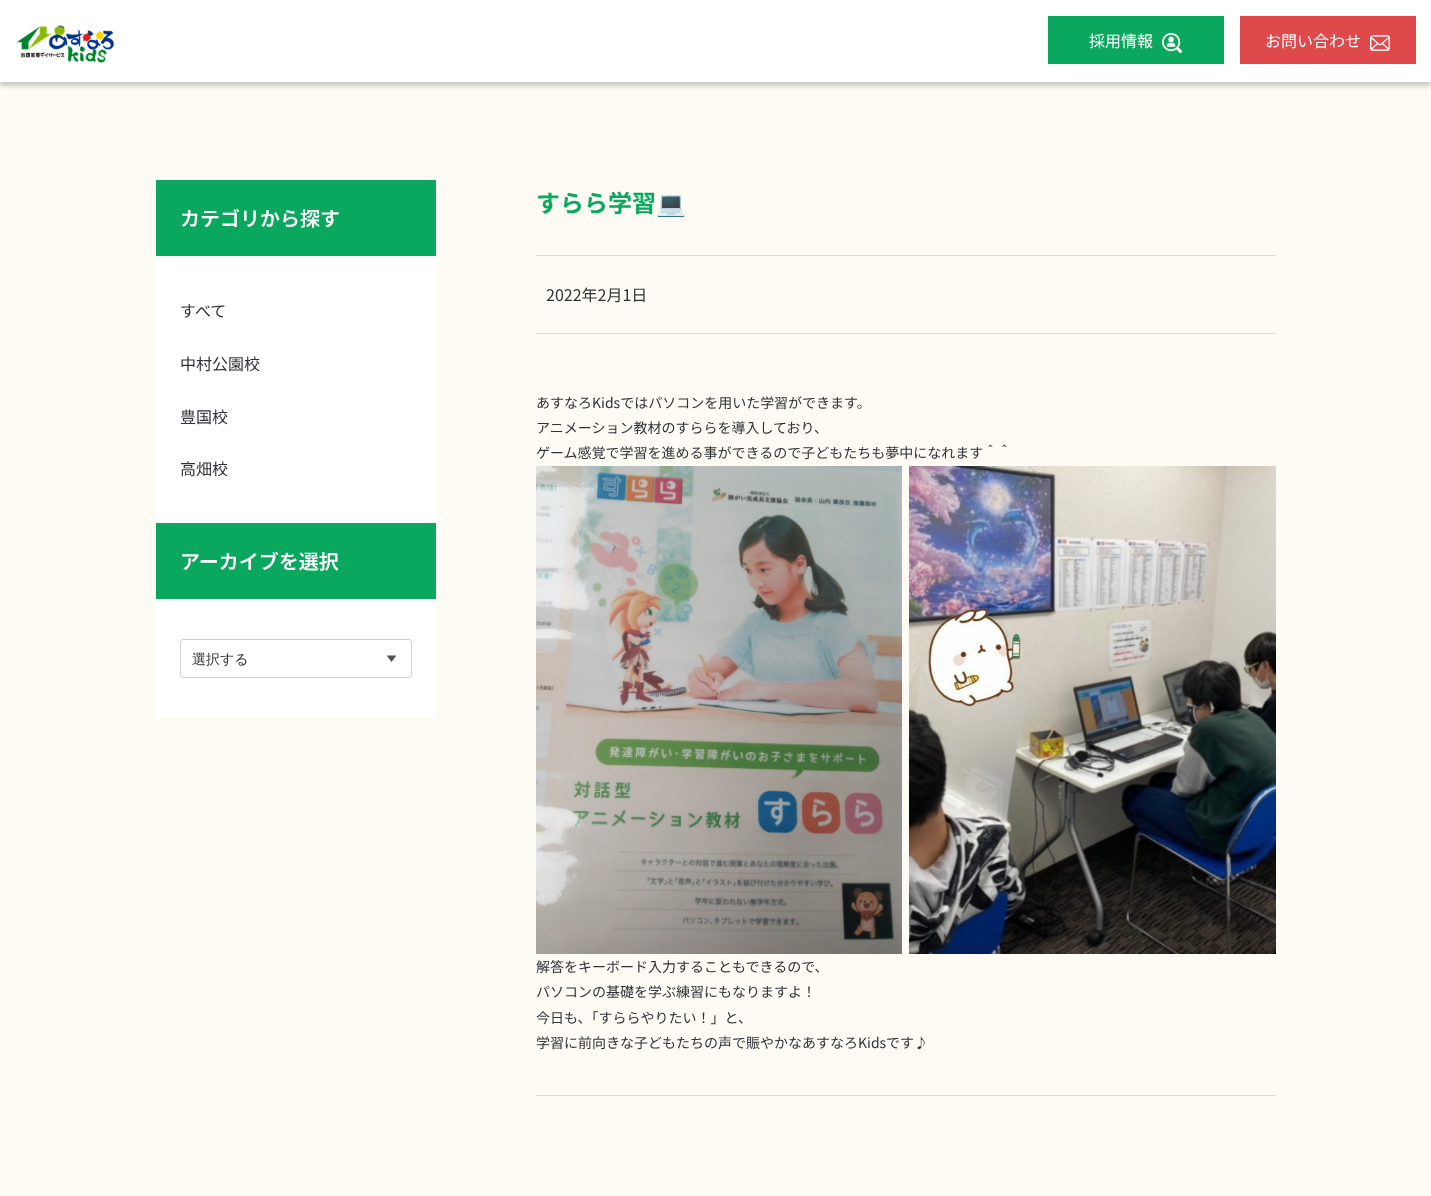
<?xml version="1.0" encoding="UTF-8"?>
<svg xmlns="http://www.w3.org/2000/svg" width="1431" height="1196">
    <defs>
        <filter id="blur1" x="-50%" y="-200%" width="200%" height="500%"><feGaussianBlur stdDeviation="2"/></filter>
    </defs>
    <rect width="100%" height="100%" fill="#FEFBF4"/>
    <rect x="0" y="4" width="1431" height="82" fill="#000000" fill-opacity="0.2" filter="url(#blur1)"/>
    <rect x="0" y="0" width="1431" height="82" fill="#FFFFFF"/>
    <image x="16" y="25" width="99" height="38" href="img_01.png"/>
    <rect x="1048" y="16" width="176" height="48" fill="#0AA85E"/>
    <text x="1089" y="47" font-family="Noto Sans JP" font-size="16" fill="#FFFFFF">採用情報</text>
    <image x="1162" y="33" width="20" height="20" href="img_02.png"/>
    <rect x="1240" y="16" width="176" height="48" fill="#DF494B"/>
    <text x="1265" y="47" font-family="Noto Sans JP" font-size="16" fill="#FFFFFF">お問い合わせ</text>
    <image x="1370" y="35" width="20" height="16" href="img_03.png"/>
    <rect x="156" y="180" width="280" height="76" fill="#0AA85E"/>
    <text x="180" y="226" font-family="Noto Sans JP" font-size="20" font-weight="600" fill="#FFFFFF">カテゴリから探す</text>
    <rect x="156" y="256" width="280" height="267" fill="#FFFFFF"/>
    <text x="180" y="317" font-family="Noto Sans JP" font-size="16" fill="#2F3337">すべて</text>
    <text x="180" y="370" font-family="Noto Sans JP" font-size="16" fill="#2F3337">中村公園校</text>
    <text x="180" y="423" font-family="Noto Sans JP" font-size="16" fill="#2F3337">豊国校</text>
    <text x="180" y="475" font-family="Noto Sans JP" font-size="16" fill="#2F3337">高畑校</text>
    <rect x="156" y="523" width="280" height="76" fill="#0AA85E"/>
    <text x="180" y="569" font-family="Noto Sans JP" font-size="20" font-weight="600" fill="#FFFFFF">アーカイブを選択</text>
    <rect x="156" y="599" width="280" height="119" fill="#FFFFFF"/>
    <rect x="180.5" y="639.5" width="231" height="38" rx="2.5" fill="none" stroke="#D0D0D0"/>
    <text x="192" y="664" font-family="WenQuanYi Zen Hei" font-size="14" font-weight="500" fill="#2F3337">選択する</text>
    <path d="M 387 656 V 655.5 H 396.5 L 391.5 662 Z" fill="#535353"/>
    <text x="536" y="212" font-family="Noto Sans JP" font-size="24" font-weight="700" fill="#0AA85E">すらら学習</text>
    <text x="656" y="212" font-family="Noto Color Emoji" font-size="24" font-weight="700" fill="#0AA85E">💻</text>
    <rect x="536" y="255" width="740" height="1" fill="#DBDBD9"/>
    <rect x="536" y="333" width="740" height="1" fill="#DBDBD9"/>
    <text x="546" y="301" font-family="Noto Sans JP" font-size="16" fill="#2F3337">2022年2月1日</text>
    <rect x="536" y="1095" width="740" height="1" fill="#DBDBD9"/>
    <text font-family="Noto Sans JP" font-size="14" fill="#2F3337">
        <tspan x="536" y="408">あすなろKidsではパソコンを用いた学習ができます。</tspan>
        <tspan x="536" y="433">アニメーション教材のすららを導入しており、</tspan>
        <tspan x="536" y="458">ゲーム感覚で学習を進める事ができるので子どもたちも夢中になれます＾＾</tspan>
    </text>
    <image x="536" y="466" width="366" height="488" href="img_04.png"/>
    <image x="909" y="466" width="367" height="488" href="img_05.png"/>
    <text font-family="Noto Sans JP" font-size="14" fill="#2F3337">
        <tspan x="536" y="972">解答をキーボード入力することもできるので、</tspan>
        <tspan x="536" y="997">パソコンの基礎を学ぶ練習にもなりますよ！</tspan>
        <tspan x="536" y="1023">今日も、「すららやりたい！」と、</tspan>
        <tspan x="536" y="1048">学習に前向きな子どもたちの声で賑やかなあすなろKidsです♪</tspan>
    </text>
</svg>
